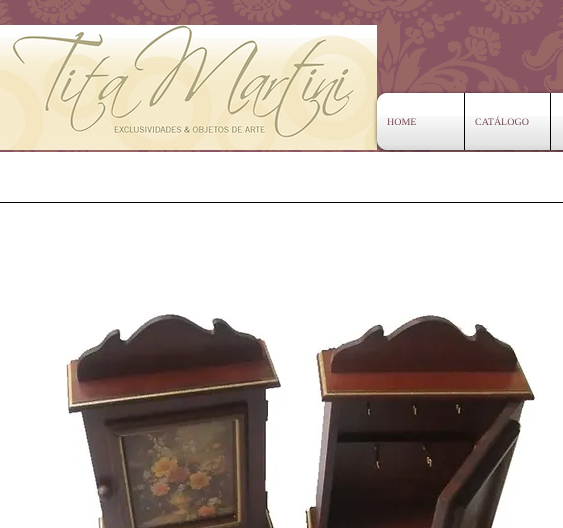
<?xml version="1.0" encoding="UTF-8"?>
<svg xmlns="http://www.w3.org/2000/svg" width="563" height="528">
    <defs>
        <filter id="blur1" x="-50%" y="-200%" width="200%" height="500%"><feGaussianBlur stdDeviation="2"/></filter>
    </defs>
    <rect width="100%" height="100%" fill="#FFFFFF"/>
    <image x="0" y="0" width="563" height="152" href="img_01.png"/>
    <image x="0" y="25" width="377" height="125" href="img_02.png"/>
    <rect x="377" y="94" width="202" height="57" rx="10" fill="#000000" fill-opacity="0.6" filter="url(#blur1)"/>
    <image x="377" y="93" width="9" height="9" href="img_03.png"/>
    <image x="377" y="140" width="10" height="10" href="img_04.png"/>
    <path d="M 387 93 H 464 V 150 H 387 C 381.5 150 377 145.5 377 140 V 103 C 377 97.5 381.5 93 387 93 Z" fill="#FFFFFF"/>
    <text x="387" y="125" font-family="Liberation Serif" font-size="10" fill="#6C3A43">HOME</text>
    <image x="387" y="118" width="29" height="7" href="img_05.png"/>
    <image x="377" y="116" width="87" height="34" href="img_06.png"/>
    <rect x="465" y="93" width="85" height="57" fill="#FFFFFF"/>
    <rect x="464" y="93" width="1" height="57" fill="#000000"/>
    <text x="475" y="125" font-family="Liberation Serif" font-size="10" fill="#6C3A43">CATÁLOGO</text>
    <image x="475" y="116" width="54" height="9" href="img_07.png"/>
    <image x="465" y="116" width="85" height="34" href="img_08.png"/>
    <rect x="551" y="93" width="12" height="57" fill="#FFFFFF"/>
    <rect x="550" y="93" width="1" height="57" fill="#000000"/>
    <image x="561" y="118" width="2" height="7" href="img_09.png"/>
    <image x="551" y="116" width="12" height="34" href="img_10.png"/>
    <rect x="379" y="152" width="184" height="3" fill="#FFFFFF"/>
    <image x="66" y="313" width="472" height="215" href="img_11.png"/>
    <rect x="0" y="202" width="563" height="1" fill="#000000"/>
</svg>
